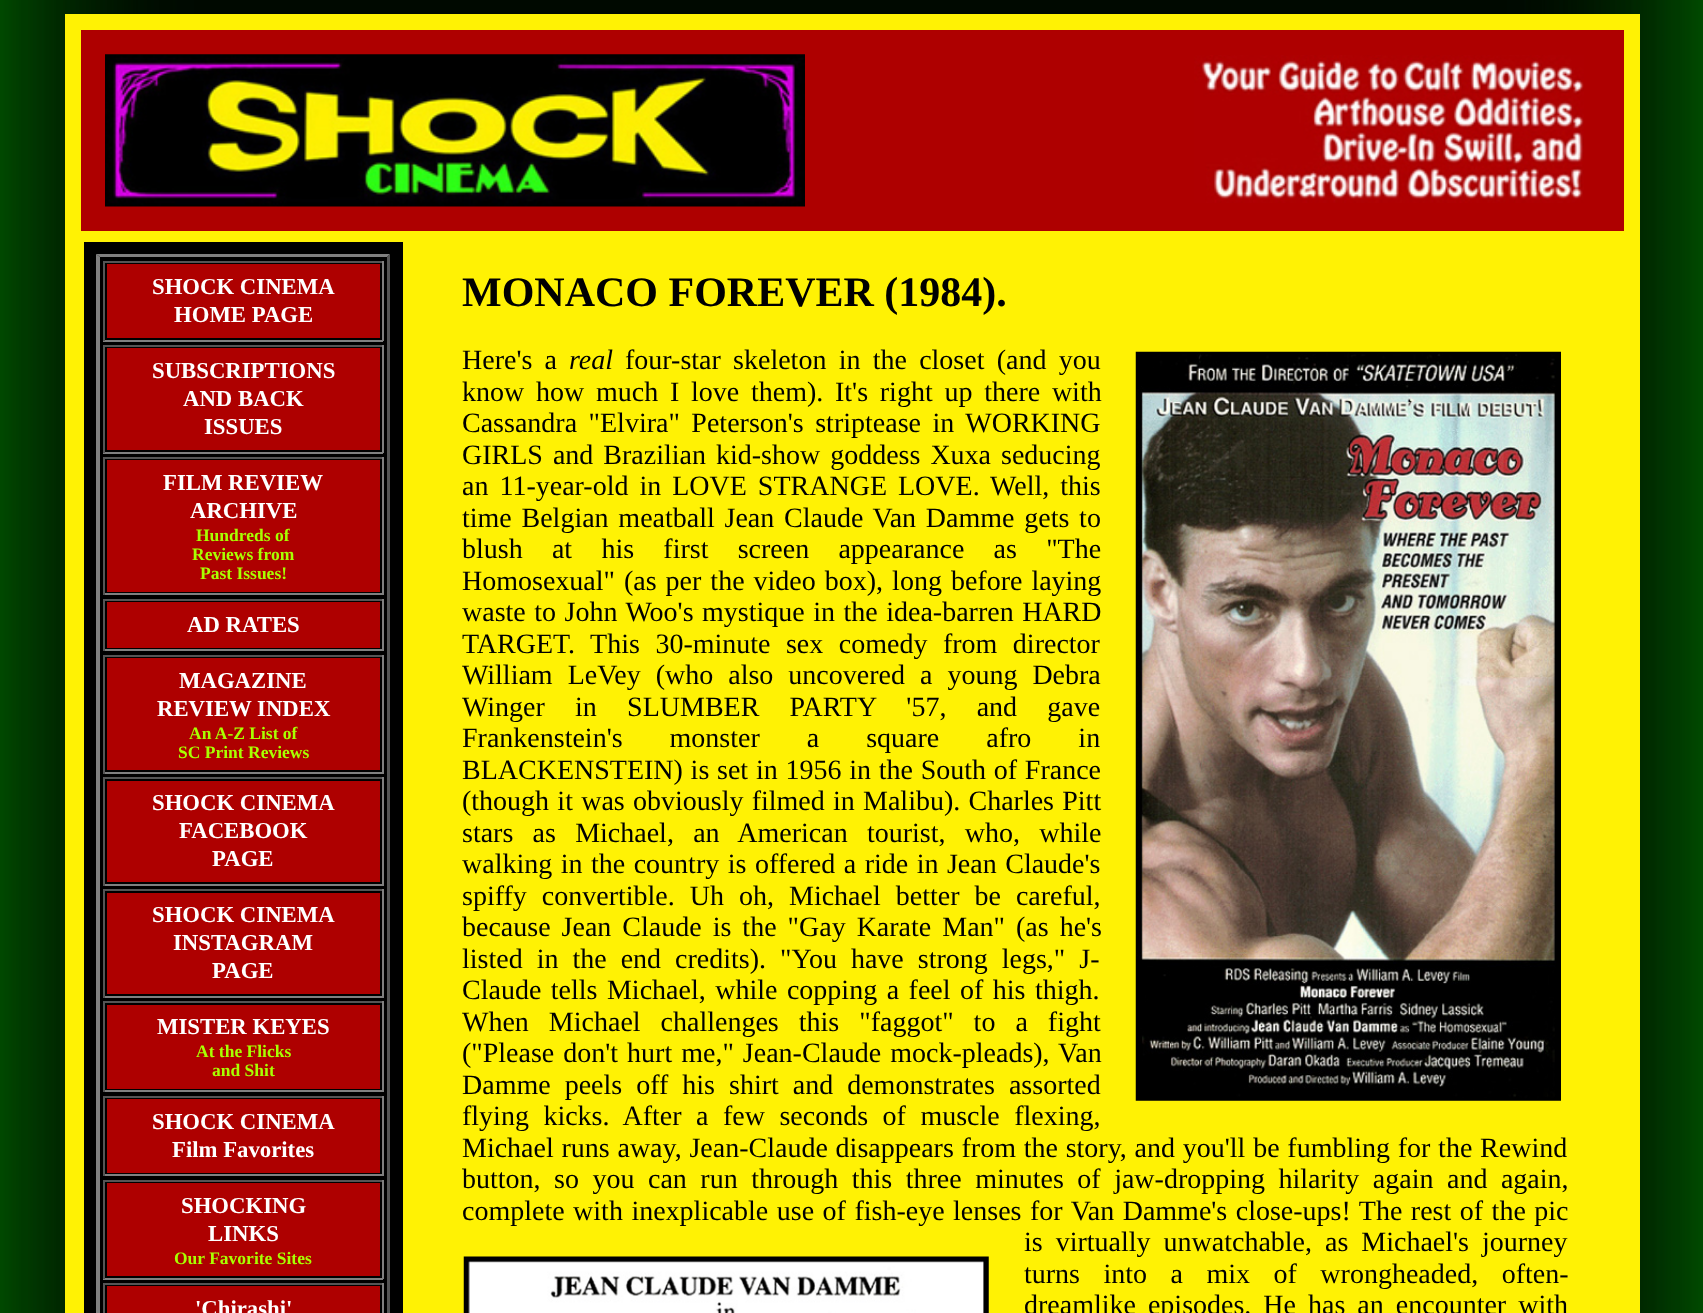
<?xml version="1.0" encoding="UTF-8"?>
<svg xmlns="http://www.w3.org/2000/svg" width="1703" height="1313">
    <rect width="100%" height="100%" fill="#FFFFFF"/>
    <image x="0" y="0" width="1703" height="1313" href="img_01.png"/>
    <rect x="65" y="14" width="1575" height="1299" fill="#FFF204"/>
    <rect x="81" y="30" width="1543" height="201" fill="#AE0000"/>
    <image x="105" y="54" width="700" height="153" href="img_02.png"/>
    <image x="1194" y="55" width="390" height="148" href="img_03.png"/>
    <rect x="84" y="242" width="319" height="1071" fill="#000000"/>
    <path d="M 96 254 H 390 L 387 257 H 100 Z" fill="#808080"/>
    <path d="M 390 254 V 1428 L 387 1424 V 257 Z" fill="#555555"/>
    <path d="M 96 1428 V 254 L 100 257 V 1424 Z" fill="#808080"/>
    <rect x="103" y="261" width="280" height="2" fill="#555555"/>
    <rect x="382" y="261" width="2" height="80" fill="#808080"/>
    <rect x="103" y="340" width="280" height="2" fill="#808080"/>
    <rect x="103" y="261" width="2" height="80" fill="#555555"/>
    <rect x="107" y="264" width="273" height="74" fill="#AE0000"/>
    <text x="152" y="294" font-family="Liberation Serif" font-size="22.75" font-weight="700" fill="#FFFFFF">SHOCK CINEMA</text>
    <text x="174" y="322" font-family="Liberation Serif" font-size="22.75" font-weight="700" fill="#FFFFFF">HOME PAGE</text>
    <rect x="103" y="345" width="280" height="2" fill="#555555"/>
    <rect x="382" y="345" width="2" height="108" fill="#808080"/>
    <rect x="103" y="452" width="280" height="2" fill="#808080"/>
    <rect x="103" y="345" width="2" height="108" fill="#555555"/>
    <rect x="107" y="348" width="273" height="102" fill="#AE0000"/>
    <text x="152" y="378" font-family="Liberation Serif" font-size="22.75" font-weight="700" fill="#FFFFFF">SUBSCRIPTIONS</text>
    <text x="183" y="406" font-family="Liberation Serif" font-size="22.75" font-weight="700" fill="#FFFFFF">AND BACK</text>
    <text x="204" y="434" font-family="Liberation Serif" font-size="22.75" font-weight="700" fill="#FFFFFF">ISSUES</text>
    <rect x="103" y="457" width="280" height="2" fill="#555555"/>
    <rect x="382" y="457" width="2" height="138" fill="#808080"/>
    <rect x="103" y="593" width="280" height="2" fill="#808080"/>
    <rect x="103" y="457" width="2" height="138" fill="#555555"/>
    <rect x="107" y="460" width="273" height="132" fill="#AE0000"/>
    <text x="163" y="490" font-family="Liberation Serif" font-size="22.75" font-weight="700" fill="#FFFFFF">FILM REVIEW</text>
    <text x="190" y="518" font-family="Liberation Serif" font-size="22.75" font-weight="700" fill="#FFFFFF">ARCHIVE</text>
    <text x="196" y="541" font-family="Liberation Serif" font-size="17.5" font-weight="700" fill="#A8FF01">Hundreds of</text>
    <text x="192" y="560" font-family="Liberation Serif" font-size="17.5" font-weight="700" fill="#A8FF01">Reviews from</text>
    <text x="200" y="579" font-family="Liberation Serif" font-size="17.5" font-weight="700" fill="#A8FF01">Past Issues!</text>
    <rect x="103" y="599" width="280" height="2" fill="#555555"/>
    <rect x="382" y="599" width="2" height="52" fill="#808080"/>
    <rect x="103" y="649" width="280" height="2" fill="#808080"/>
    <rect x="103" y="599" width="2" height="52" fill="#555555"/>
    <rect x="107" y="602" width="273" height="46" fill="#AE0000"/>
    <text x="187" y="632" font-family="Liberation Serif" font-size="22.75" font-weight="700" fill="#FFFFFF">AD RATES</text>
    <rect x="103" y="655" width="280" height="2" fill="#555555"/>
    <rect x="382" y="655" width="2" height="119" fill="#808080"/>
    <rect x="103" y="772" width="280" height="2" fill="#808080"/>
    <rect x="103" y="655" width="2" height="119" fill="#555555"/>
    <rect x="107" y="658" width="273" height="112" fill="#AE0000"/>
    <text x="179" y="688" font-family="Liberation Serif" font-size="22.75" font-weight="700" fill="#FFFFFF">MAGAZINE</text>
    <text x="157" y="716" font-family="Liberation Serif" font-size="22.75" font-weight="700" fill="#FFFFFF">REVIEW INDEX</text>
    <text x="189" y="739" font-family="Liberation Serif" font-size="17.5" font-weight="700" fill="#A8FF01">An A-Z List of</text>
    <text x="178" y="758" font-family="Liberation Serif" font-size="17.5" font-weight="700" fill="#A8FF01">SC Print Reviews</text>
    <rect x="103" y="777" width="280" height="2" fill="#555555"/>
    <rect x="382" y="777" width="2" height="109" fill="#808080"/>
    <rect x="103" y="884" width="280" height="2" fill="#808080"/>
    <rect x="103" y="777" width="2" height="109" fill="#555555"/>
    <rect x="107" y="781" width="273" height="101" fill="#AE0000"/>
    <text x="152" y="810" font-family="Liberation Serif" font-size="22.75" font-weight="700" fill="#FFFFFF">SHOCK CINEMA</text>
    <text x="179" y="838" font-family="Liberation Serif" font-size="22.75" font-weight="700" fill="#FFFFFF">FACEBOOK</text>
    <text x="212" y="866" font-family="Liberation Serif" font-size="22.75" font-weight="700" fill="#FFFFFF">PAGE</text>
    <rect x="103" y="889" width="280" height="2" fill="#555555"/>
    <rect x="382" y="889" width="2" height="109" fill="#808080"/>
    <rect x="103" y="996" width="280" height="2" fill="#808080"/>
    <rect x="103" y="889" width="2" height="109" fill="#555555"/>
    <rect x="107" y="893" width="273" height="101" fill="#AE0000"/>
    <text x="152" y="922" font-family="Liberation Serif" font-size="22.75" font-weight="700" fill="#FFFFFF">SHOCK CINEMA</text>
    <text x="173" y="950" font-family="Liberation Serif" font-size="22.75" font-weight="700" fill="#FFFFFF">INSTAGRAM</text>
    <text x="212" y="978" font-family="Liberation Serif" font-size="22.75" font-weight="700" fill="#FFFFFF">PAGE</text>
    <rect x="103" y="1001" width="280" height="2" fill="#555555"/>
    <rect x="382" y="1001" width="2" height="91" fill="#808080"/>
    <rect x="103" y="1090" width="280" height="2" fill="#808080"/>
    <rect x="103" y="1001" width="2" height="91" fill="#555555"/>
    <rect x="107" y="1005" width="273" height="84" fill="#AE0000"/>
    <text x="157" y="1034" font-family="Liberation Serif" font-size="22.75" font-weight="700" fill="#FFFFFF">MISTER KEYES</text>
    <text x="196" y="1057" font-family="Liberation Serif" font-size="17.5" font-weight="700" fill="#A8FF01">At the Flicks</text>
    <text x="212" y="1076" font-family="Liberation Serif" font-size="17.5" font-weight="700" fill="#A8FF01">and Shit</text>
    <rect x="103" y="1096" width="280" height="2" fill="#555555"/>
    <rect x="382" y="1096" width="2" height="80" fill="#808080"/>
    <rect x="103" y="1174" width="280" height="2" fill="#808080"/>
    <rect x="103" y="1096" width="2" height="80" fill="#555555"/>
    <rect x="107" y="1099" width="273" height="74" fill="#AE0000"/>
    <text x="152" y="1129" font-family="Liberation Serif" font-size="22.75" font-weight="700" fill="#FFFFFF">SHOCK CINEMA</text>
    <text x="172" y="1157" font-family="Liberation Serif" font-size="22.75" font-weight="700" fill="#FFFFFF">Film Favorites</text>
    <rect x="103" y="1180" width="280" height="2" fill="#555555"/>
    <rect x="382" y="1180" width="2" height="99" fill="#808080"/>
    <rect x="103" y="1278" width="280" height="2" fill="#808080"/>
    <rect x="103" y="1180" width="2" height="99" fill="#555555"/>
    <rect x="107" y="1183" width="273" height="93" fill="#AE0000"/>
    <text x="181" y="1213" font-family="Liberation Serif" font-size="22.75" font-weight="700" fill="#FFFFFF">SHOCKING</text>
    <text x="208" y="1241" font-family="Liberation Serif" font-size="22.75" font-weight="700" fill="#FFFFFF">LINKS</text>
    <text x="174" y="1264" font-family="Liberation Serif" font-size="17.5" font-weight="700" fill="#A8FF01">Our Favorite Sites</text>
    <rect x="103" y="1283" width="280" height="2" fill="#555555"/>
    <rect x="382" y="1283" width="2" height="30" fill="#808080"/>
    <rect x="103" y="1283" width="2" height="30" fill="#555555"/>
    <rect x="107" y="1286" width="273" height="27" fill="#AE0000"/>
    <text x="195" y="1316" font-family="Liberation Serif" font-size="22.75" font-weight="700" fill="#FFFFFF">'Chirashi'</text>
    <text x="462" y="306" font-family="Liberation Serif" font-size="42" font-weight="700" fill="#000000">MONACO FOREVER (1984).</text>
    <text x="462" y="369" word-spacing="5.25" font-family="Liberation Serif" font-size="28" fill="#000000">Here's a</text>
    <text x="569" y="369" font-family="Liberation Serif" font-size="28" font-style="italic" fill="#000000">real</text>
    <text x="625" y="369" word-spacing="5.25" font-family="Liberation Serif" font-size="28" fill="#000000">four-star skeleton in the closet (and you</text>
    <image x="1135" y="351" width="426" height="750" href="img_04.png"/>
    <text font-family="Liberation Serif" font-size="28" fill="#000000">
        <tspan x="462" y="401" word-spacing="4.75">know how much I love them). It's right up there with</tspan>
        <tspan x="462" y="432" word-spacing="4.5">Cassandra "Elvira" Peterson's striptease in WORKING</tspan>
        <tspan x="462" y="464" word-spacing="3">GIRLS and Brazilian kid-show goddess Xuxa seducing</tspan>
        <tspan x="462" y="495" word-spacing="4">an 11-year-old in LOVE STRANGE LOVE. Well, this</tspan>
        <tspan x="462" y="527" word-spacing="2.75">time Belgian meatball Jean Claude Van Damme gets to</tspan>
        <tspan x="462" y="558" word-spacing="22.25">blush at his first screen appearance as "The</tspan>
        <tspan x="462" y="590" word-spacing="2">Homosexual" (as per the video box), long before laying</tspan>
        <tspan x="462" y="621" word-spacing="1.5">waste to John Woo's mystique in the idea-barren HARD</tspan>
        <tspan x="462" y="653" word-spacing="8.5">TARGET. This 30-minute sex comedy from director</tspan>
        <tspan x="462" y="684" word-spacing="8">William LeVey (who also uncovered a young Debra</tspan>
        <tspan x="462" y="716" word-spacing="23.25">Winger in SLUMBER PARTY '57, and gave</tspan>
        <tspan x="462" y="747" word-spacing="40">Frankenstein's monster a square afro in</tspan>
        <tspan x="462" y="779" word-spacing="0.75">BLACKENSTEIN) is set in 1956 in the South of France</tspan>
        <tspan x="462" y="810" word-spacing="1.25">(though it was obviously filmed in Malibu). Charles Pitt</tspan>
        <tspan x="462" y="842" word-spacing="12.25">stars as Michael, an American tourist, who, while</tspan>
        <tspan x="462" y="873" word-spacing="1.5">walking in the country is offered a ride in Jean Claude's</tspan>
        <tspan x="462" y="905" word-spacing="8">spiffy convertible. Uh oh, Michael better be careful,</tspan>
        <tspan x="462" y="936" word-spacing="4">because Jean Claude is the "Gay Karate Man" (as he's</tspan>
        <tspan x="462" y="968" word-spacing="7">listed in the end credits). "You have strong legs," J-</tspan>
        <tspan x="462" y="999" word-spacing="2.5">Claude tells Michael, while copping a feel of his thigh.</tspan>
        <tspan x="462" y="1031" word-spacing="13">When Michael challenges this "faggot" to a fight</tspan>
        <tspan x="462" y="1062" word-spacing="2">("Please don't hurt me," Jean-Claude mock-pleads), Van</tspan>
        <tspan x="462" y="1094" word-spacing="7">Damme peels off his shirt and demonstrates assorted</tspan>
        <tspan x="462" y="1125" word-spacing="7.5">flying kicks. After a few seconds of muscle flexing,</tspan>
        <tspan x="462" y="1157" word-spacing="0.75">Michael runs away, Jean-Claude disappears from the story, and you'll be fumbling for the Rewind</tspan>
        <tspan x="462" y="1188" word-spacing="6.5">button, so you can run through this three minutes of jaw-dropping hilarity again and again,</tspan>
        <tspan x="462" y="1220" word-spacing="1.5">complete with inexplicable use of fish-eye lenses for Van Damme's close-ups! The rest of the pic</tspan>
    </text>
    <text x="1024" y="1251" word-spacing="6" font-family="Liberation Serif" font-size="28" fill="#000000">is virtually unwatchable,</text>
    <text x="1325" y="1251" word-spacing="6" font-family="Liberation Serif" font-size="28" fill="#000000">as Michael's journey</text>
    <image x="463" y="1256" width="526" height="57" href="img_05.png"/>
    <text font-family="Liberation Serif" font-size="28" fill="#000000">
        <tspan x="1024" y="1283" word-spacing="16.5">turns into a mix of wrongheaded, often-</tspan>
        <tspan x="1024" y="1314" word-spacing="5">dreamlike episodes. He has an encounter with</tspan>
    </text>
</svg>
